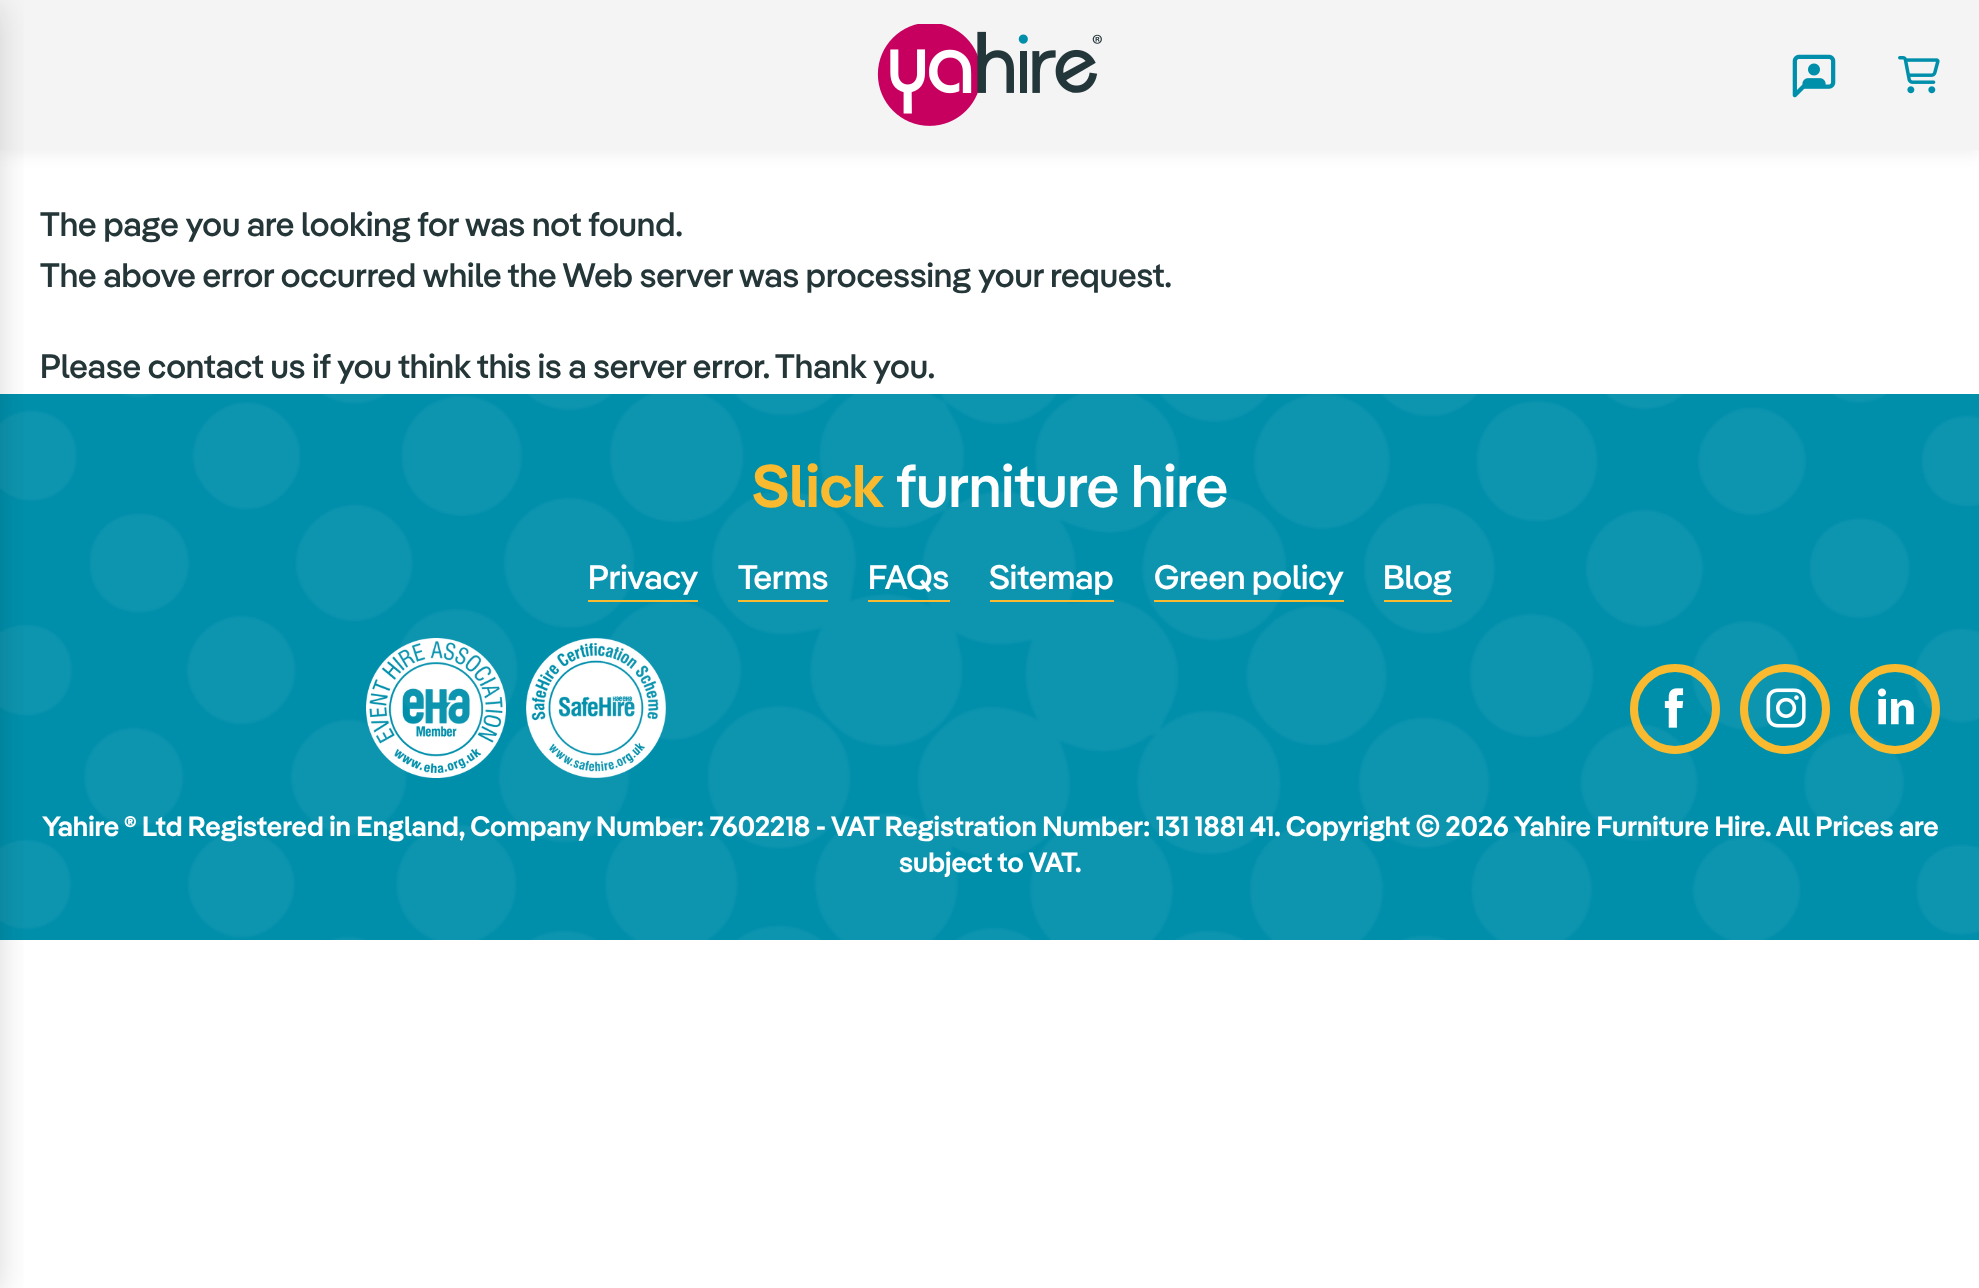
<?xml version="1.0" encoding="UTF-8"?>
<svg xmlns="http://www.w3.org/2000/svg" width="1979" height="1288">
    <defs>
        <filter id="blur1" x="-50%" y="-200%" width="200%" height="500%"><feGaussianBlur stdDeviation="8"/></filter>
        <filter id="blur2" x="-50%" y="-200%" width="200%" height="500%"><feGaussianBlur stdDeviation="16"/></filter>
    </defs>
    <rect width="100%" height="100%" fill="#FFFFFF"/>
    <rect x="0" y="4" width="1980" height="150" fill="#000000" fill-opacity="0.06" filter="url(#blur1)"/>
    <rect x="0" y="0" width="1979" height="150" fill="#F4F4F4"/>
    <rect x="0" y="394" width="1979" height="546" fill="#008FAB"/>
    <image x="0" y="394" width="1979" height="546" href="img_04.png"/>
    <rect x="-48" y="6" width="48" height="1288" fill="#000101" fill-opacity="0.15" filter="url(#blur2)"/>
    <image x="877" y="24" width="225" height="102" href="img_01.png"/>
    <image x="1792" y="54" width="44" height="44" href="img_02.png"/>
    <image x="1898" y="56" width="42" height="38" href="img_03.png"/>
    <text font-family="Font" font-size="34" font-weight="500" fill="#243638">
        <tspan x="40" y="236">The page you are looking for was not found.</tspan>
        <tspan x="40" y="287">The above error occurred while the Web server was processing your request.</tspan>
    </text>
    <text x="40" y="378" font-family="Font" font-size="34" font-weight="500" fill="#243638">Please contact us if you think this is a server error. Thank you.</text>
    <text x="752" y="507" font-family="Font" font-size="60" font-weight="600" fill="#F9BA2F">Slick</text>
    <text x="896" y="507" font-family="Font" font-size="60" font-weight="500" fill="#FFFFFF">furniture hire</text>
    <text x="588" y="589" font-family="Font" font-size="34" font-weight="500" fill="#FFFFFF">Privacy</text>
    <rect x="588" y="600" width="110" height="2" fill="#F9BA2F"/>
    <text x="738" y="589" font-family="Font" font-size="34" font-weight="500" fill="#FFFFFF">Terms</text>
    <rect x="738" y="600" width="90" height="2" fill="#F9BA2F"/>
    <text x="868" y="589" font-family="Font" font-size="34" font-weight="500" fill="#FFFFFF">FAQs</text>
    <rect x="868" y="600" width="82" height="2" fill="#F9BA2F"/>
    <text x="989" y="589" font-family="Font" font-size="34" font-weight="500" fill="#FFFFFF">Sitemap</text>
    <rect x="990" y="600" width="124" height="2" fill="#F9BA2F"/>
    <text x="1154" y="589" font-family="Font" font-size="34" font-weight="500" fill="#FFFFFF">Green policy</text>
    <rect x="1154" y="600" width="190" height="2" fill="#F9BA2F"/>
    <text x="1383" y="589" font-family="Font" font-size="34" font-weight="500" fill="#FFFFFF">Blog</text>
    <rect x="1384" y="600" width="68" height="2" fill="#F9BA2F"/>
    <image x="366" y="638" width="140" height="140" href="img_05.png"/>
    <image x="526" y="638" width="140" height="140" href="img_06.png"/>
    <image x="1664" y="688" width="20" height="40" href="img_07.png"/>
    <circle cx="1675" cy="709" r="41" fill="none" stroke="#F9BA2F" stroke-width="8"/>
    <image x="1766" y="688" width="40" height="40" href="img_08.png"/>
    <circle cx="1785" cy="709" r="41" fill="none" stroke="#F9BA2F" stroke-width="8"/>
    <image x="1878" y="688" width="36" height="37" href="img_09.png"/>
    <circle cx="1895" cy="709" r="41" fill="none" stroke="#F9BA2F" stroke-width="8"/>
    <text x="42" y="836" font-family="Font" font-size="28" font-weight="600" fill="#FFFFFF">Yahire ® Ltd Registered in England, Company Number: 7602218 - VAT Registration Number: 131 1881 41. Copyright © 2026 Yahire Furniture Hire. All Prices are</text>
    <text x="899" y="872" font-family="Font" font-size="28" font-weight="600" fill="#FFFFFF">subject to VAT.</text>
</svg>
